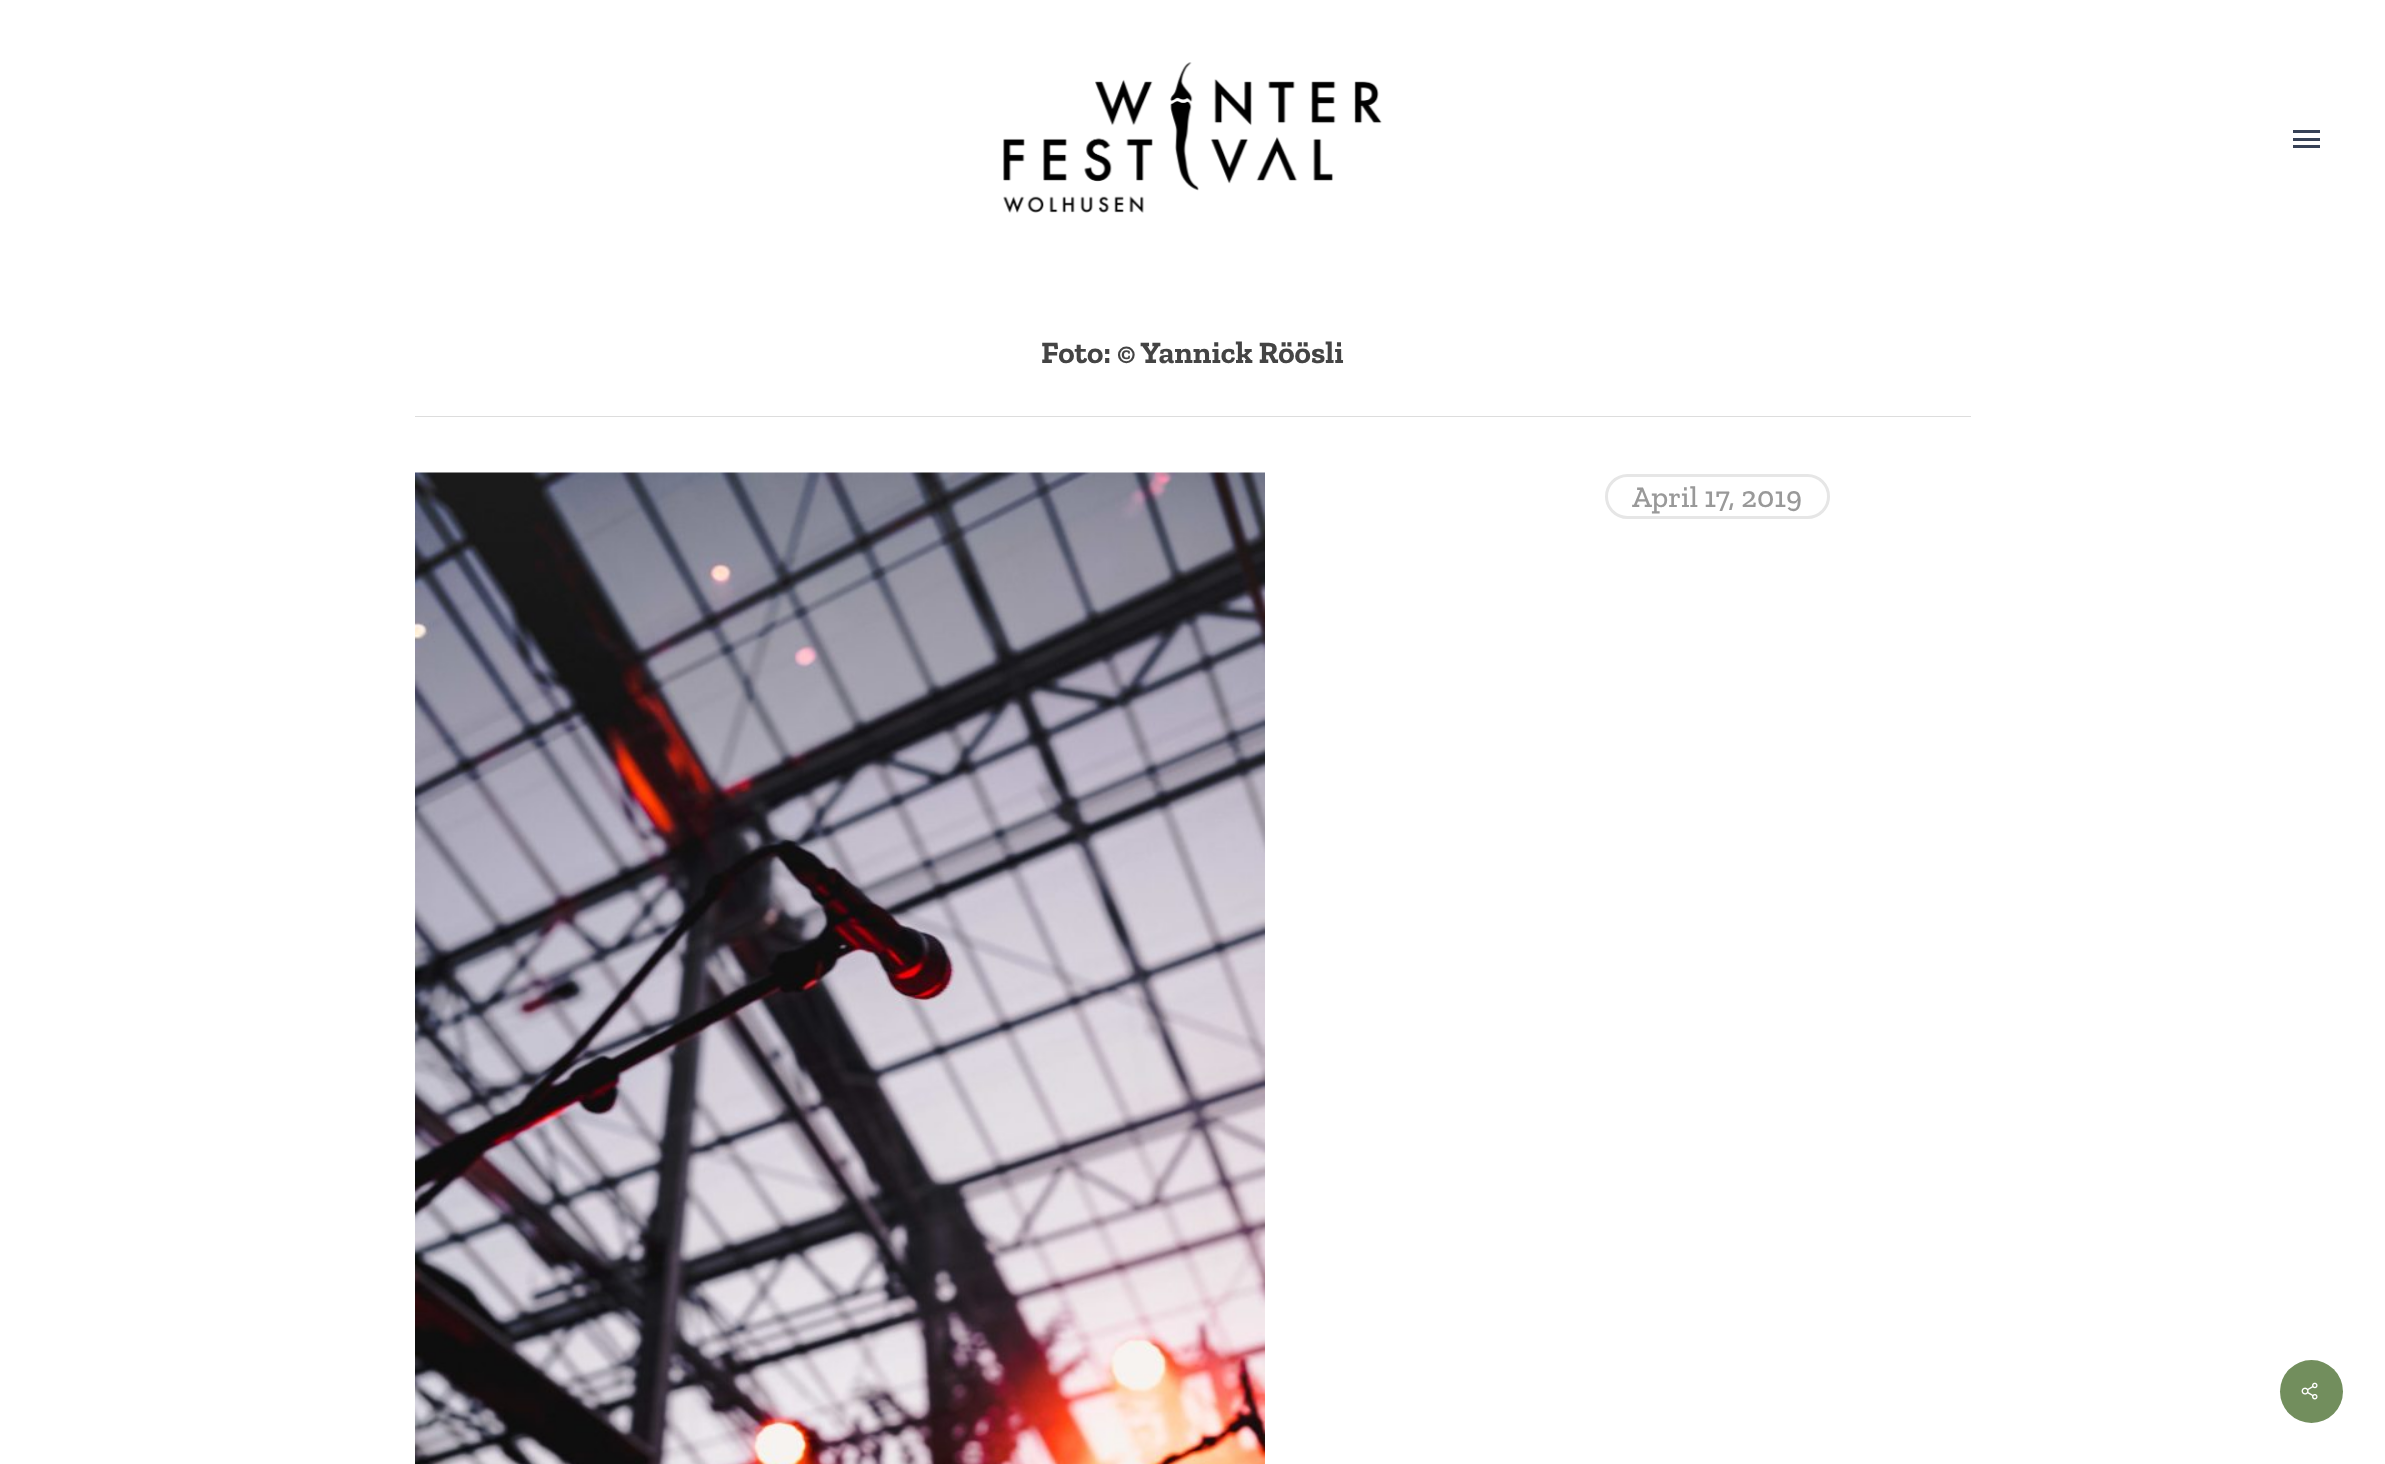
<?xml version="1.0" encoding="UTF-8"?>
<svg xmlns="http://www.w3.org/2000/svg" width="2385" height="1464">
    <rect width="100%" height="100%" fill="#FFFFFF"/>
    <image x="1003" y="62" width="379" height="151" href="img_01.png"/>
    <rect x="2293" y="130" width="27" height="3" fill="#364156"/>
    <rect x="2293" y="145" width="27" height="3" fill="#364156"/>
    <rect x="2293" y="138" width="27" height="3" fill="#364156"/>
    <rect x="415" y="416" width="1556" height="1" fill="#DDDDDD"/>
    <text x="1041" y="363" font-family="Zilla Slab" font-size="31.25" font-weight="700" fill="#444444">Foto: © Yannick Röösli</text>
    <image x="415" y="472" width="850" height="992" href="img_02.png"/>
    <rect x="1606.5" y="475.5" width="222" height="42" rx="21" fill="none" stroke="#E6E6E6" stroke-width="3"/>
    <text x="1632" y="507" font-family="Zilla Slab" font-size="30" font-weight="500" fill="#999999">April 17, 2019</text>
    <circle cx="2311.5" cy="1391.5" r="31.5" fill="#728E5D"/>
    <image x="2301" y="1382" width="17" height="18" href="img_03.png"/>
</svg>
